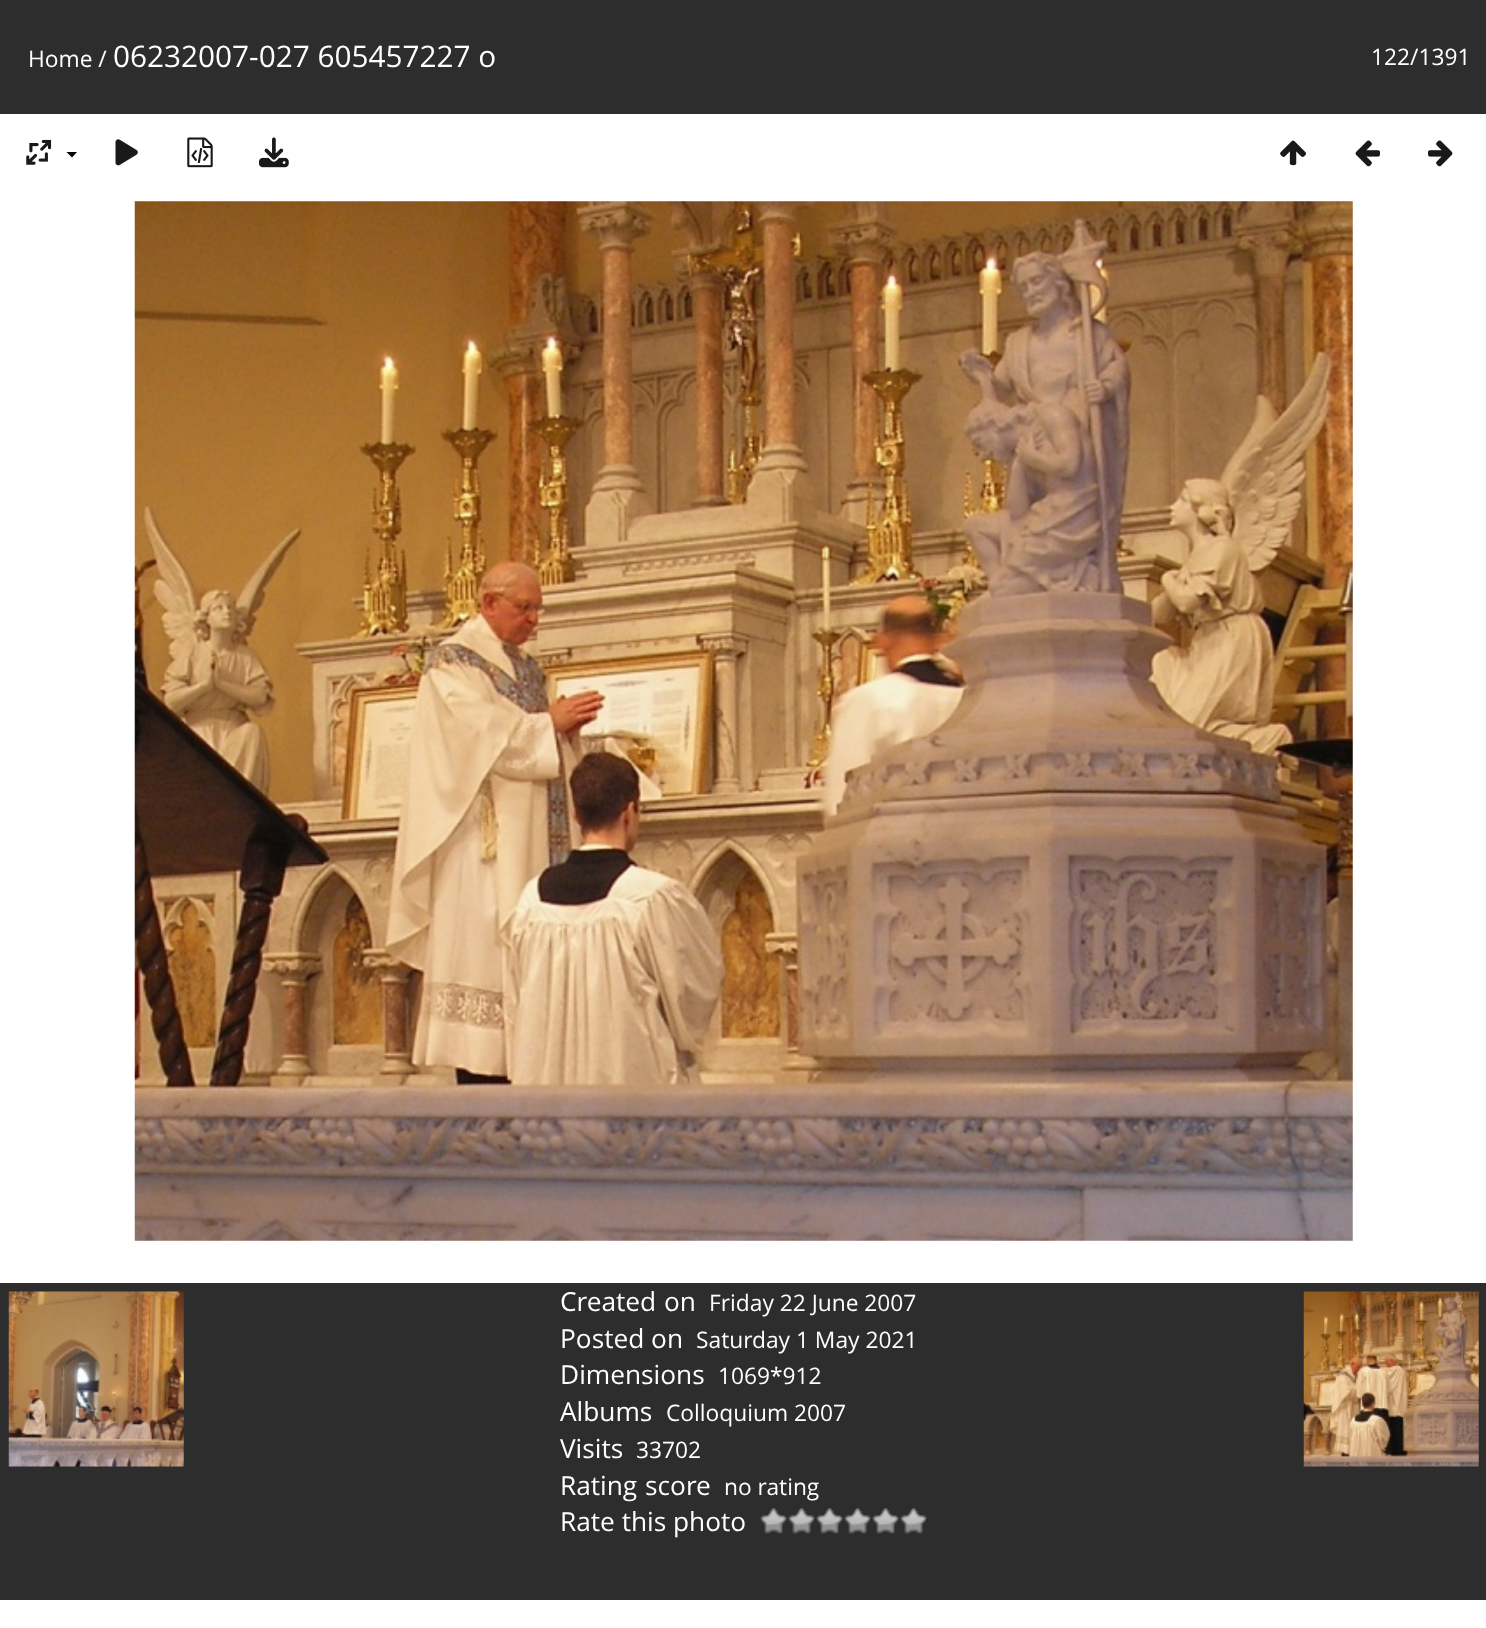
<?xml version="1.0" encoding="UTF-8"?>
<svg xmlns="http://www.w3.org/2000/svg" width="1486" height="1628">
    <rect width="100%" height="100%" fill="#FFFFFF"/>
    <rect x="0" y="0" width="1486" height="114" fill="#2D2D2D"/>
    <text x="28" y="67" font-family="Open Sans" font-size="22.75" fill="#FFFFFF">Home /</text>
    <text x="113" y="67" font-family="Open Sans" font-size="29.75" fill="#FFFFFF">06232007-027 605457227 o</text>
    <text x="1371" y="65" font-family="Open Sans" font-size="22.75" fill="#FFFFFF">122/1391</text>
    <image x="26" y="139" width="26" height="26" href="img_01.png"/>
    <path d="M 66.5 152 H 77 L 72 157.5 Z" fill="#000000"/>
    <image x="115" y="139" width="23" height="27" href="img_02.png"/>
    <image x="187" y="137" width="26" height="31" href="img_03.png"/>
    <image x="259" y="137" width="30" height="31" href="img_04.png"/>
    <image x="1280" y="140" width="26" height="26" href="img_05.png"/>
    <image x="1355" y="140" width="25" height="27" href="img_06.png"/>
    <image x="1428" y="140" width="25" height="27" href="img_07.png"/>
    <image x="134" y="201" width="1219" height="1040" href="img_08.png"/>
    <rect x="0" y="1283" width="1486" height="317" fill="#2D2D2D"/>
    <image x="8" y="1291" width="176" height="176" href="img_09.png"/>
    <image x="1303" y="1291" width="176" height="176" href="img_10.png"/>
    <text x="560" y="1311" word-spacing="1" font-family="Open Sans" font-size="26.25" fill="#FFFFFF">Created on</text>
    <text x="709" y="1311" font-family="Open Sans" font-size="22.75" fill="#FFFFFF">Friday 22 June 2007</text>
    <text x="560" y="1348" font-family="Open Sans" font-size="26.25" fill="#FFFFFF">Posted on</text>
    <text x="696" y="1348" font-family="Open Sans" font-size="22.75" fill="#FFFFFF">Saturday 1 May 2021</text>
    <text x="560" y="1384" font-family="Open Sans" font-size="26.25" fill="#FFFFFF">Dimensions</text>
    <text x="718" y="1384" font-family="Open Sans" font-size="22.75" fill="#FFFFFF">1069*912</text>
    <text x="560" y="1421" font-family="Open Sans" font-size="26.25" fill="#FFFFFF">Albums</text>
    <text x="666" y="1421" font-family="Open Sans" font-size="22.75" fill="#FFFFFF">Colloquium 2007</text>
    <text x="560" y="1458" font-family="Open Sans" font-size="26.25" fill="#FFFFFF">Visits</text>
    <text x="636" y="1458" font-family="Open Sans" font-size="22.75" fill="#FFFFFF">33702</text>
    <text x="560" y="1495" word-spacing="1" font-family="Open Sans" font-size="26.25" fill="#FFFFFF">Rating score</text>
    <text x="724" y="1495" font-family="Open Sans" font-size="22.75" fill="#FFFFFF">no rating</text>
    <text x="560" y="1531" font-family="Open Sans" font-size="26.25" fill="#FFFFFF">Rate this photo</text>
    <image x="759" y="1508" width="29" height="26" href="img_11.png"/>
    <image x="788" y="1508" width="28" height="26" href="img_12.png"/>
    <image x="816" y="1508" width="28" height="26" href="img_12.png"/>
    <image x="844" y="1508" width="28" height="26" href="img_13.png"/>
    <image x="872" y="1508" width="28" height="26" href="img_13.png"/>
    <image x="900" y="1508" width="28" height="26" href="img_14.png"/>
</svg>
